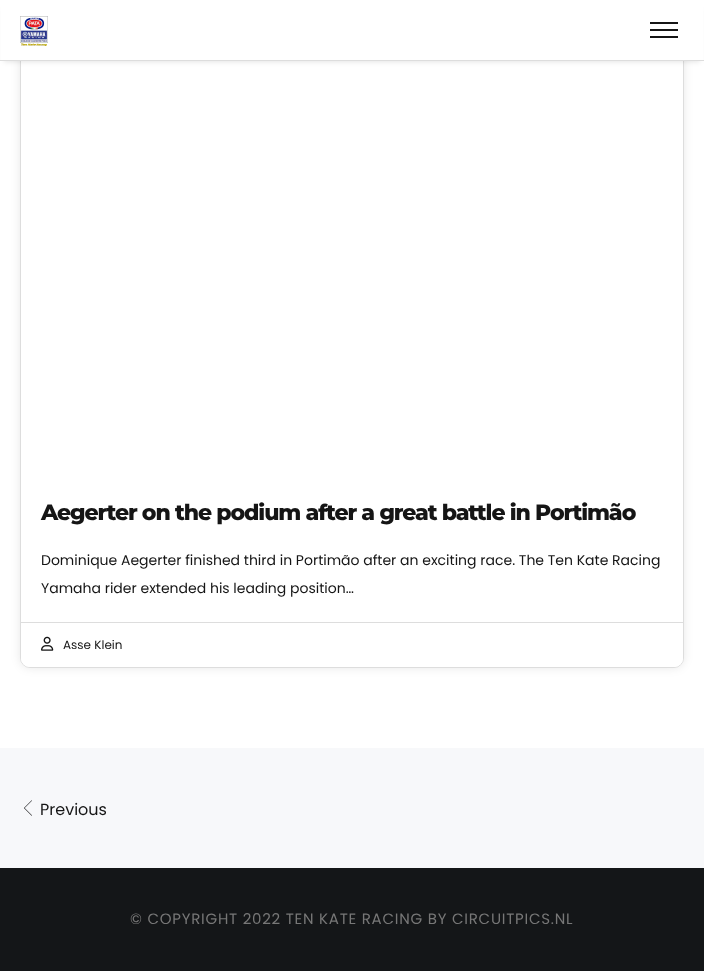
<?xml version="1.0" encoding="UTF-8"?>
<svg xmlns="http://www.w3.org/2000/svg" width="704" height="971">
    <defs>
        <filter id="blur1" x="-50%" y="-200%" width="200%" height="500%"><feGaussianBlur stdDeviation="5"/></filter>
        <filter id="blur2" x="-50%" y="-200%" width="200%" height="500%"><feGaussianBlur stdDeviation="2.5"/></filter>
    </defs>
    <rect width="100%" height="100%" fill="#FFFFFF"/>
    <rect x="20" y="-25" width="664" height="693" rx="10" fill="#000000" fill-opacity="0.09" filter="url(#blur1)"/>
    <rect x="20.5" y="-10.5" width="663" height="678" rx="9.5" fill="#FFFFFF" stroke="#DDDDDD"/>
    <rect x="4" y="9" width="696" height="53" fill="#000000" fill-opacity="0.1" filter="url(#blur2)"/>
    <rect x="1" y="0" width="702" height="60" fill="#FFFFFF"/>
    <rect x="0" y="60" width="704" height="1" fill="#DDDDDD"/>
    <image x="20" y="16" width="28" height="30" href="img_01.png"/>
    <rect x="650" y="29" width="28" height="2" fill="#151515"/>
    <rect x="650" y="22" width="28" height="2" fill="#151515"/>
    <rect x="650" y="36" width="28" height="2" fill="#151515"/>
    <text x="41" y="520" font-family="Montserrat" font-size="22" font-weight="800" letter-spacing="-1.1" fill="#151515">Aegerter on the podium after a great battle in Portimão</text>
    <text x="41" y="565" font-family="Poppins" font-size="14" fill="#151515">Dominique Aegerter finished third in Portimão after an exciting race. The Ten Kate Racing</text>
    <text x="41" y="593" font-family="Poppins" font-size="14" fill="#151515">Yamaha rider extended his leading position…</text>
    <path d="M 21 622 H 683 V 658 C 683 663 679 667 674 667 H 30 C 25 667 21 663 21 658 Z" fill="#FFFFFF"/>
    <rect x="21" y="622" width="662" height="1" fill="#DDDDDD"/>
    <image x="41" y="636" width="13" height="15" href="img_02.png"/>
    <text x="63" y="649" font-family="Poppins" font-size="12" fill="#151515">Asse Klein</text>
    <rect x="0" y="748" width="704" height="120" fill="#F7F8FA"/>
    <image x="24" y="800" width="8" height="16" href="img_03.png"/>
    <text x="40" y="815" font-family="Poppins" font-size="16" fill="#151515">Previous</text>
    <rect x="0" y="868" width="704" height="103" fill="#141618"/>
    <text x="130" y="924" font-family="Poppins" font-size="15" letter-spacing="0.75" fill="#777777">© COPYRIGHT 2022 TEN KATE RACING BY CIRCUITPICS.NL</text>
</svg>
